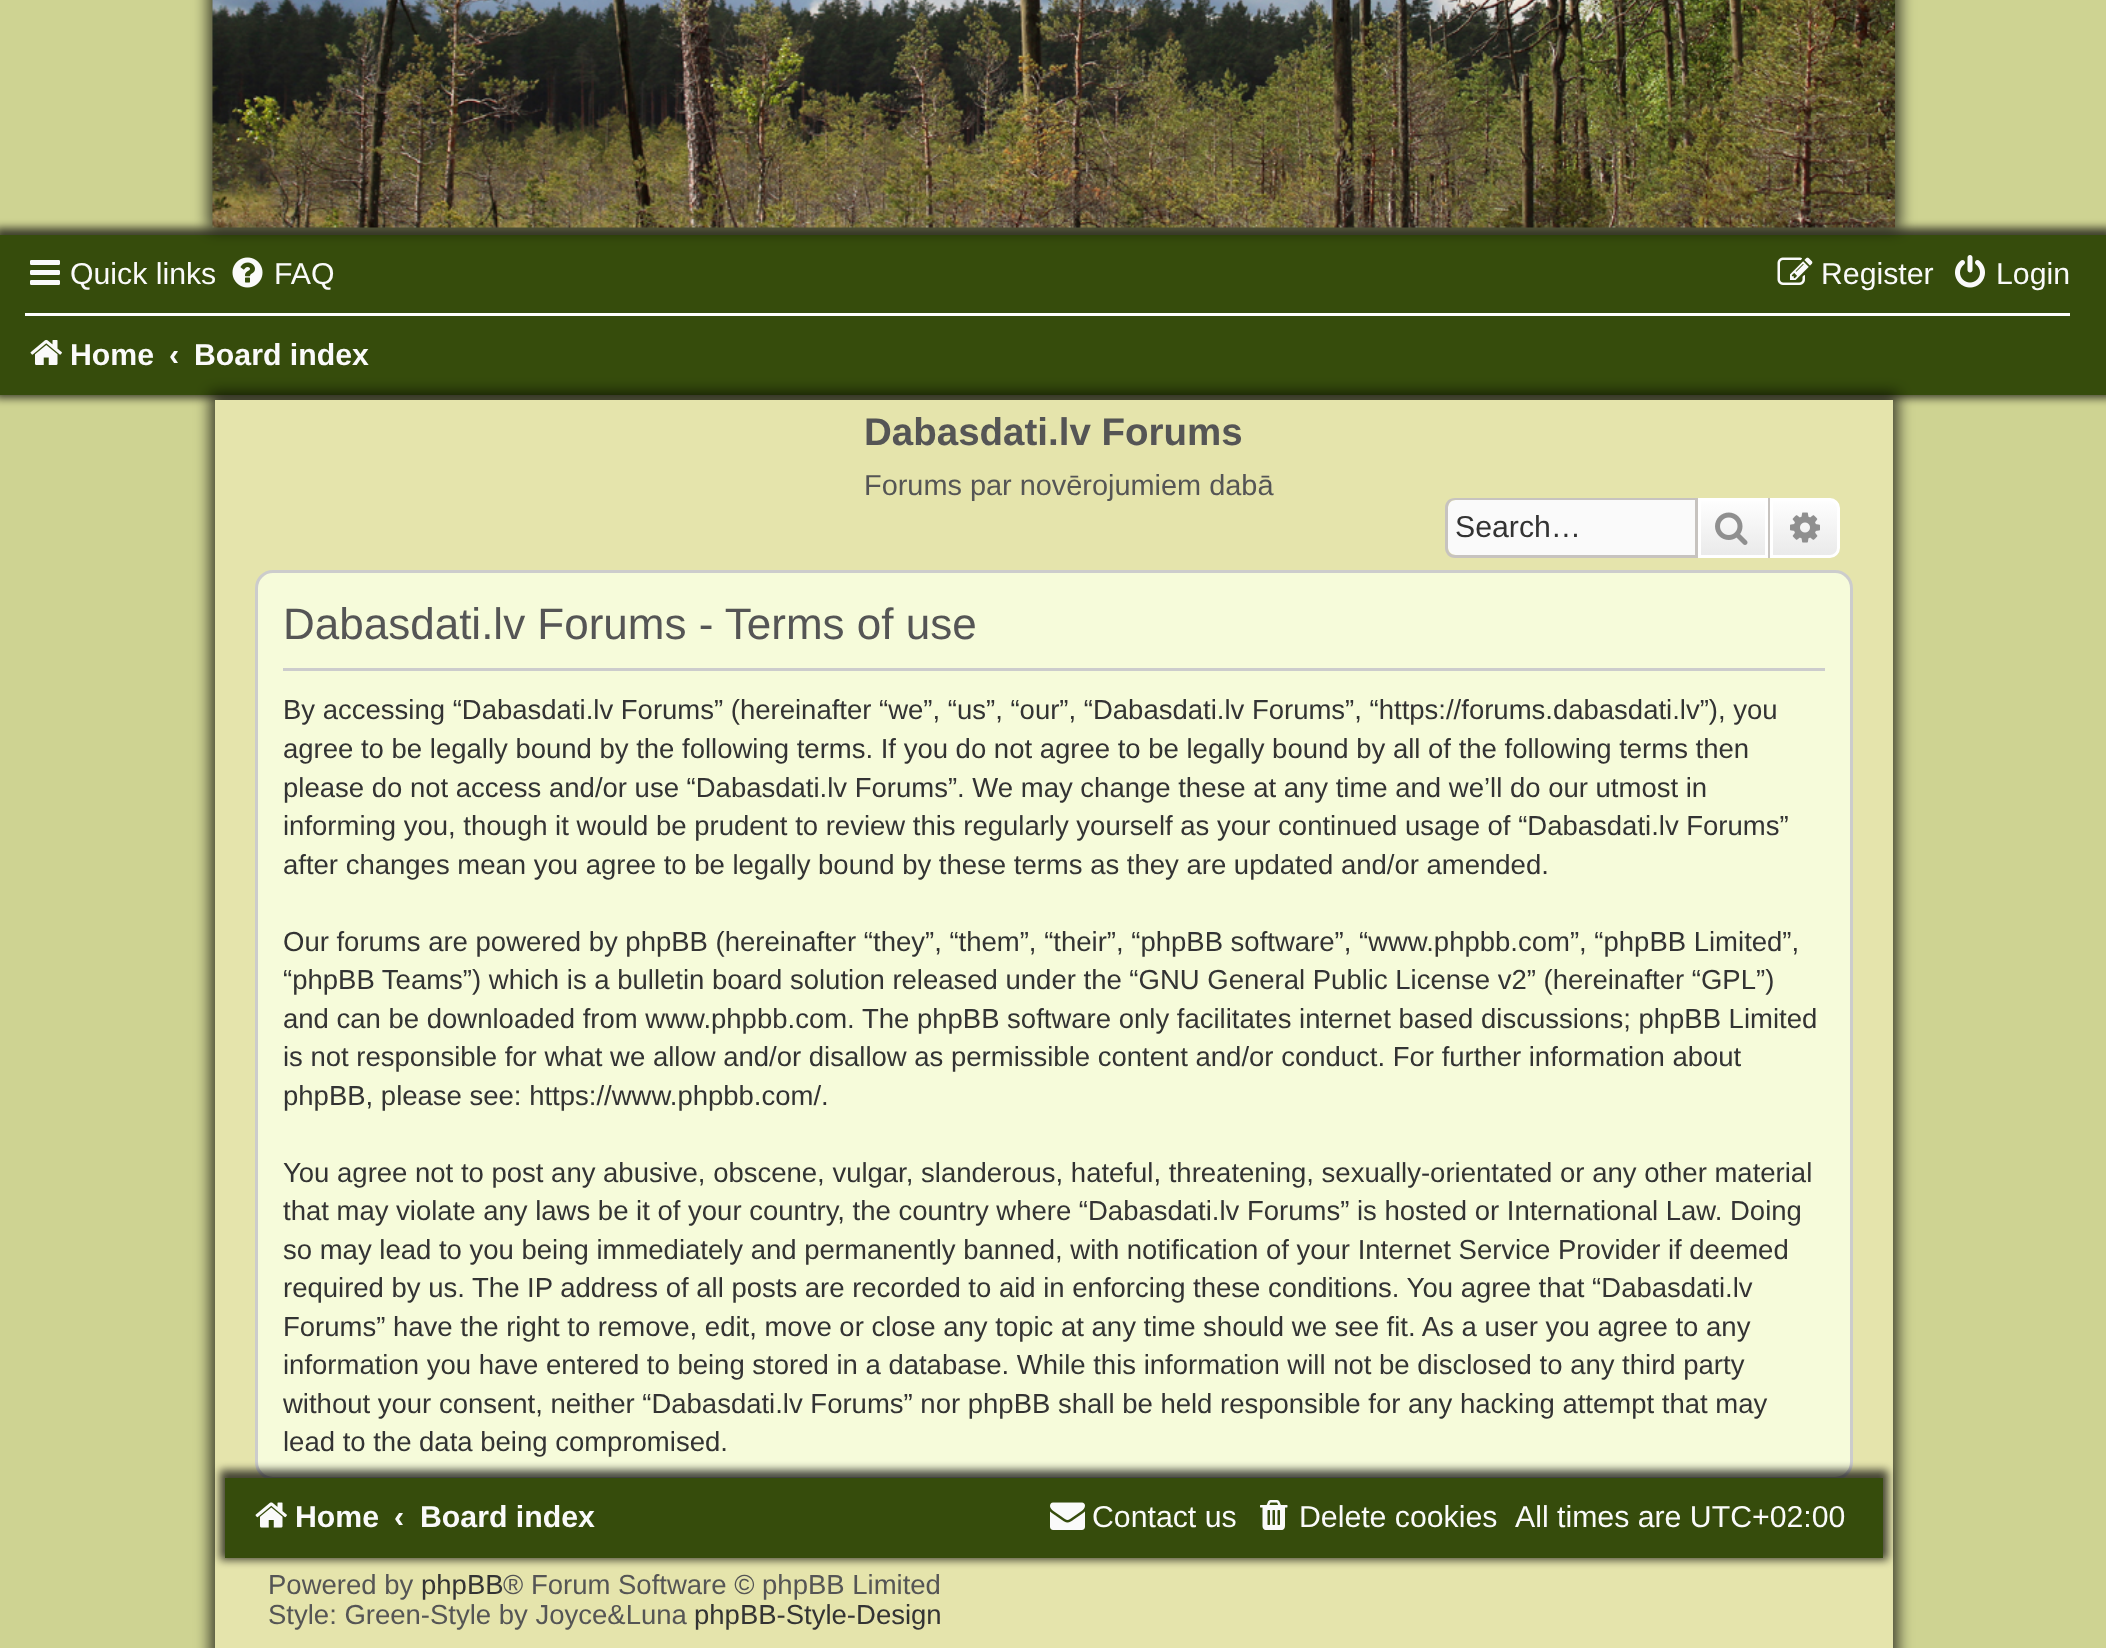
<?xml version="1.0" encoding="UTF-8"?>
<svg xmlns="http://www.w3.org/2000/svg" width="2106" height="1648">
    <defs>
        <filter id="blur1" x="-50%" y="-200%" width="200%" height="500%"><feGaussianBlur stdDeviation="4"/></filter>
        <filter id="blur2" x="-50%" y="-200%" width="200%" height="500%"><feGaussianBlur stdDeviation="7.5"/></filter>
        <linearGradient id="g1" gradientUnits="userSpaceOnUse" x1="1733" y1="498" x2="1733" y2="558"><stop offset="0" stop-color="#FFFFFF"/><stop offset="1" stop-color="#E9E9E9"/></linearGradient>
        <linearGradient id="g2" gradientUnits="userSpaceOnUse" x1="1805" y1="498" x2="1805" y2="558"><stop offset="0" stop-color="#FFFFFF"/><stop offset="1" stop-color="#E9E9E9"/></linearGradient>
    </defs>
    <rect width="100%" height="100%" fill="#CED392"/>
    <rect x="-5" y="228" width="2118" height="170" fill="#020202" fill-opacity="0.7" filter="url(#blur1)"/>
    <rect x="0" y="235" width="2106" height="160" fill="#364C0C"/>
    <rect x="208" y="-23" width="1692" height="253" fill="#020202" fill-opacity="0.7" filter="url(#blur2)"/>
    <image x="212" y="0" width="1683" height="228" href="img_01.png"/>
    <image x="30" y="260" width="30" height="25" href="img_02.png"/>
    <text x="70" y="284" font-family="Liberation Sans" font-size="30.25" fill="#FAFAFA">Quick links</text>
    <image x="232" y="257" width="31" height="31" href="img_03.png"/>
    <text x="274" y="284" font-family="Liberation Sans" font-size="30.25" fill="#FAFAFA">FAQ</text>
    <image x="1777" y="257" width="36" height="28" href="img_04.png"/>
    <text x="1821" y="284" font-family="Liberation Sans" font-size="30.25" fill="#FAFAFA">Register</text>
    <image x="1955" y="255" width="30" height="33" href="img_05.png"/>
    <text x="1996" y="284" font-family="Liberation Sans" font-size="30.25" fill="#FAFAFA">Login</text>
    <rect x="25" y="313" width="2045" height="3" fill="#FFFFFF"/>
    <image x="30" y="339" width="32" height="26" href="img_06.png"/>
    <text x="70" y="365" font-family="Liberation Sans" font-size="30.25" font-weight="700" fill="#FAFAFA">Home</text>
    <text x="169" y="365" font-family="Liberation Sans" font-size="30.25" font-weight="700" fill="#FAFAFA">‹</text>
    <text x="194" y="365" font-family="Liberation Sans" font-size="30.25" font-weight="700" fill="#FAFAFA">Board index</text>
    <rect x="210" y="393" width="1688" height="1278" fill="#020202" fill-opacity="0.7" filter="url(#blur2)"/>
    <rect x="215" y="400" width="1678" height="1248" fill="#E5E4AC"/>
    <text x="864" y="445" font-family="Liberation Sans" font-size="38.5" font-weight="700" fill="#555555">Dabasdati.lv Forums</text>
    <text x="864" y="495" font-family="Liberation Sans" font-size="28.9" fill="#555555">Forums par novērojumiem dabā</text>
    <path d="M 1456 500 H 1695 V 555 H 1456 C 1451.5 555 1448 551.5 1448 547 V 508 C 1448 503.5 1451.5 500 1456 500 Z" fill="#FAFAFA"/>
    <path d="M 1455 498 H 1695 V 558 H 1455 C 1449 558 1445 553 1445 548 V 508 C 1445 502 1449 498 1455 498 Z M 1455 500 H 1695 V 555 H 1455 C 1451 555 1448 552 1448 548 V 508 C 1448 503 1451 500 1455 500 Z" fill="#C7C3BF" fill-rule="evenodd"/>
    <text x="1455" y="537" font-family="Liberation Sans" font-size="30.25" fill="#333333">Search…</text>
    <rect x="1701" y="501" width="64" height="54" fill="url(#g1)"/>
    <rect x="1699.5" y="499.5" width="67" height="57" fill="none" stroke="#FFFFFF" stroke-width="3"/>
    <rect x="1768" y="498" width="2" height="60" fill="#C7C3BF"/>
    <rect x="1695" y="498" width="3" height="60" fill="#C7C3BF"/>
    <image x="1715" y="512" width="33" height="33" href="img_07.png"/>
    <path d="M 1771.5 499.5 H 1830 C 1834.5 499.5 1838.5 503.5 1838.5 508 V 548 C 1838.5 552.5 1834.5 556.5 1830 556.5 H 1771.5 Z" fill="url(#g2)" stroke="#FFFFFF" stroke-width="3"/>
    <image x="1790" y="512" width="30" height="31" href="img_08.png"/>
    <rect x="256.5" y="571.5" width="1595" height="907" rx="16.5" fill="#F6FBDA" stroke="#CCCCCC" stroke-width="3"/>
    <rect x="283" y="668" width="1542" height="3" fill="#CCCCCC"/>
    <text x="283" y="639" font-family="Liberation Sans" font-size="44" fill="#555555">Dabasdati.lv Forums - Terms of use</text>
    <text font-family="Liberation Sans" font-size="27.5" fill="#333333">
        <tspan x="283" y="719">By accessing “Dabasdati.lv Forums” (hereinafter “we”, “us”, “our”, “Dabasdati.lv Forums”, “https://forums.dabasdati.lv”), you</tspan>
        <tspan x="283" y="758">agree to be legally bound by the following terms. If you do not agree to be legally bound by all of the following terms then</tspan>
        <tspan x="283" y="797">please do not access and/or use “Dabasdati.lv Forums”. We may change these at any time and we’ll do our utmost in</tspan>
        <tspan x="283" y="835">informing you, though it would be prudent to review this regularly yourself as your continued usage of “Dabasdati.lv Forums”</tspan>
        <tspan x="283" y="874">after changes mean you agree to be legally bound by these terms as they are updated and/or amended.</tspan>
    </text>
    <text font-family="Liberation Sans" font-size="27.5" fill="#333333">
        <tspan x="283" y="951">Our forums are powered by phpBB (hereinafter “they”, “them”, “their”, “phpBB software”, “www.phpbb.com”, “phpBB Limited”,</tspan>
        <tspan x="283" y="989">“phpBB Teams”) which is a bulletin board solution released under the “GNU General Public License v2” (hereinafter “GPL”)</tspan>
        <tspan x="283" y="1028">and can be downloaded from www.phpbb.com. The phpBB software only facilitates internet based discussions; phpBB Limited</tspan>
        <tspan x="283" y="1066">is not responsible for what we allow and/or disallow as permissible content and/or conduct. For further information about</tspan>
        <tspan x="283" y="1105">phpBB, please see: https://www.phpbb.com/.</tspan>
    </text>
    <text font-family="Liberation Sans" font-size="27.5" fill="#333333">
        <tspan x="283" y="1182">You agree not to post any abusive, obscene, vulgar, slanderous, hateful, threatening, sexually-orientated or any other material</tspan>
        <tspan x="283" y="1220">that may violate any laws be it of your country, the country where “Dabasdati.lv Forums” is hosted or International Law. Doing</tspan>
        <tspan x="283" y="1259">so may lead to you being immediately and permanently banned, with notification of your Internet Service Provider if deemed</tspan>
        <tspan x="283" y="1297">required by us. The IP address of all posts are recorded to aid in enforcing these conditions. You agree that “Dabasdati.lv</tspan>
        <tspan x="283" y="1336">Forums” have the right to remove, edit, move or close any topic at any time should we see fit. As a user you agree to any</tspan>
        <tspan x="283" y="1374">information you have entered to being stored in a database. While this information will not be disclosed to any third party</tspan>
        <tspan x="283" y="1413">without your consent, neither “Dabasdati.lv Forums” nor phpBB shall be held responsible for any hacking attempt that may</tspan>
        <tspan x="283" y="1451">lead to the data being compromised.</tspan>
    </text>
    <rect x="220" y="1470" width="1668" height="90" fill="#020202" fill-opacity="0.7" filter="url(#blur1)"/>
    <rect x="225" y="1478" width="1658" height="80" fill="#364C0C"/>
    <image x="255" y="1502" width="32" height="26" href="img_09.png"/>
    <text x="295" y="1527" font-family="Liberation Sans" font-size="30.25" font-weight="700" fill="#FAFAFA">Home</text>
    <text x="394" y="1527" font-family="Liberation Sans" font-size="30.25" font-weight="700" fill="#FAFAFA">‹</text>
    <text x="420" y="1527" font-family="Liberation Sans" font-size="30.25" font-weight="700" fill="#FAFAFA">Board index</text>
    <image x="1050" y="1502" width="35" height="28" href="img_10.png"/>
    <text x="1092" y="1527" font-family="Liberation Sans" font-size="30.25" fill="#FAFAFA">Contact us</text>
    <image x="1260" y="1500" width="28" height="30" href="img_11.png"/>
    <text x="1299" y="1527" font-family="Liberation Sans" font-size="30.25" fill="#FAFAFA">Delete cookies</text>
    <text x="1515" y="1527" font-family="Liberation Sans" font-size="30.25" fill="#FAFAFA">All times are UTC+02:00</text>
    <text x="268" y="1594" font-family="Liberation Sans" font-size="27.5" fill="#555555">Powered by</text>
    <text x="421" y="1594" font-family="Liberation Sans" font-size="27.5" fill="#333333">phpBB</text>
    <text x="503" y="1594" font-family="Liberation Sans" font-size="27.5" fill="#555555">® Forum Software © phpBB Limited</text>
    <text x="268" y="1624" font-family="Liberation Sans" font-size="27.5" fill="#555555">Style: Green-Style by Joyce&amp;Luna</text>
    <text x="694" y="1624" font-family="Liberation Sans" font-size="27.5" fill="#333333">phpBB-Style-Design</text>
</svg>
